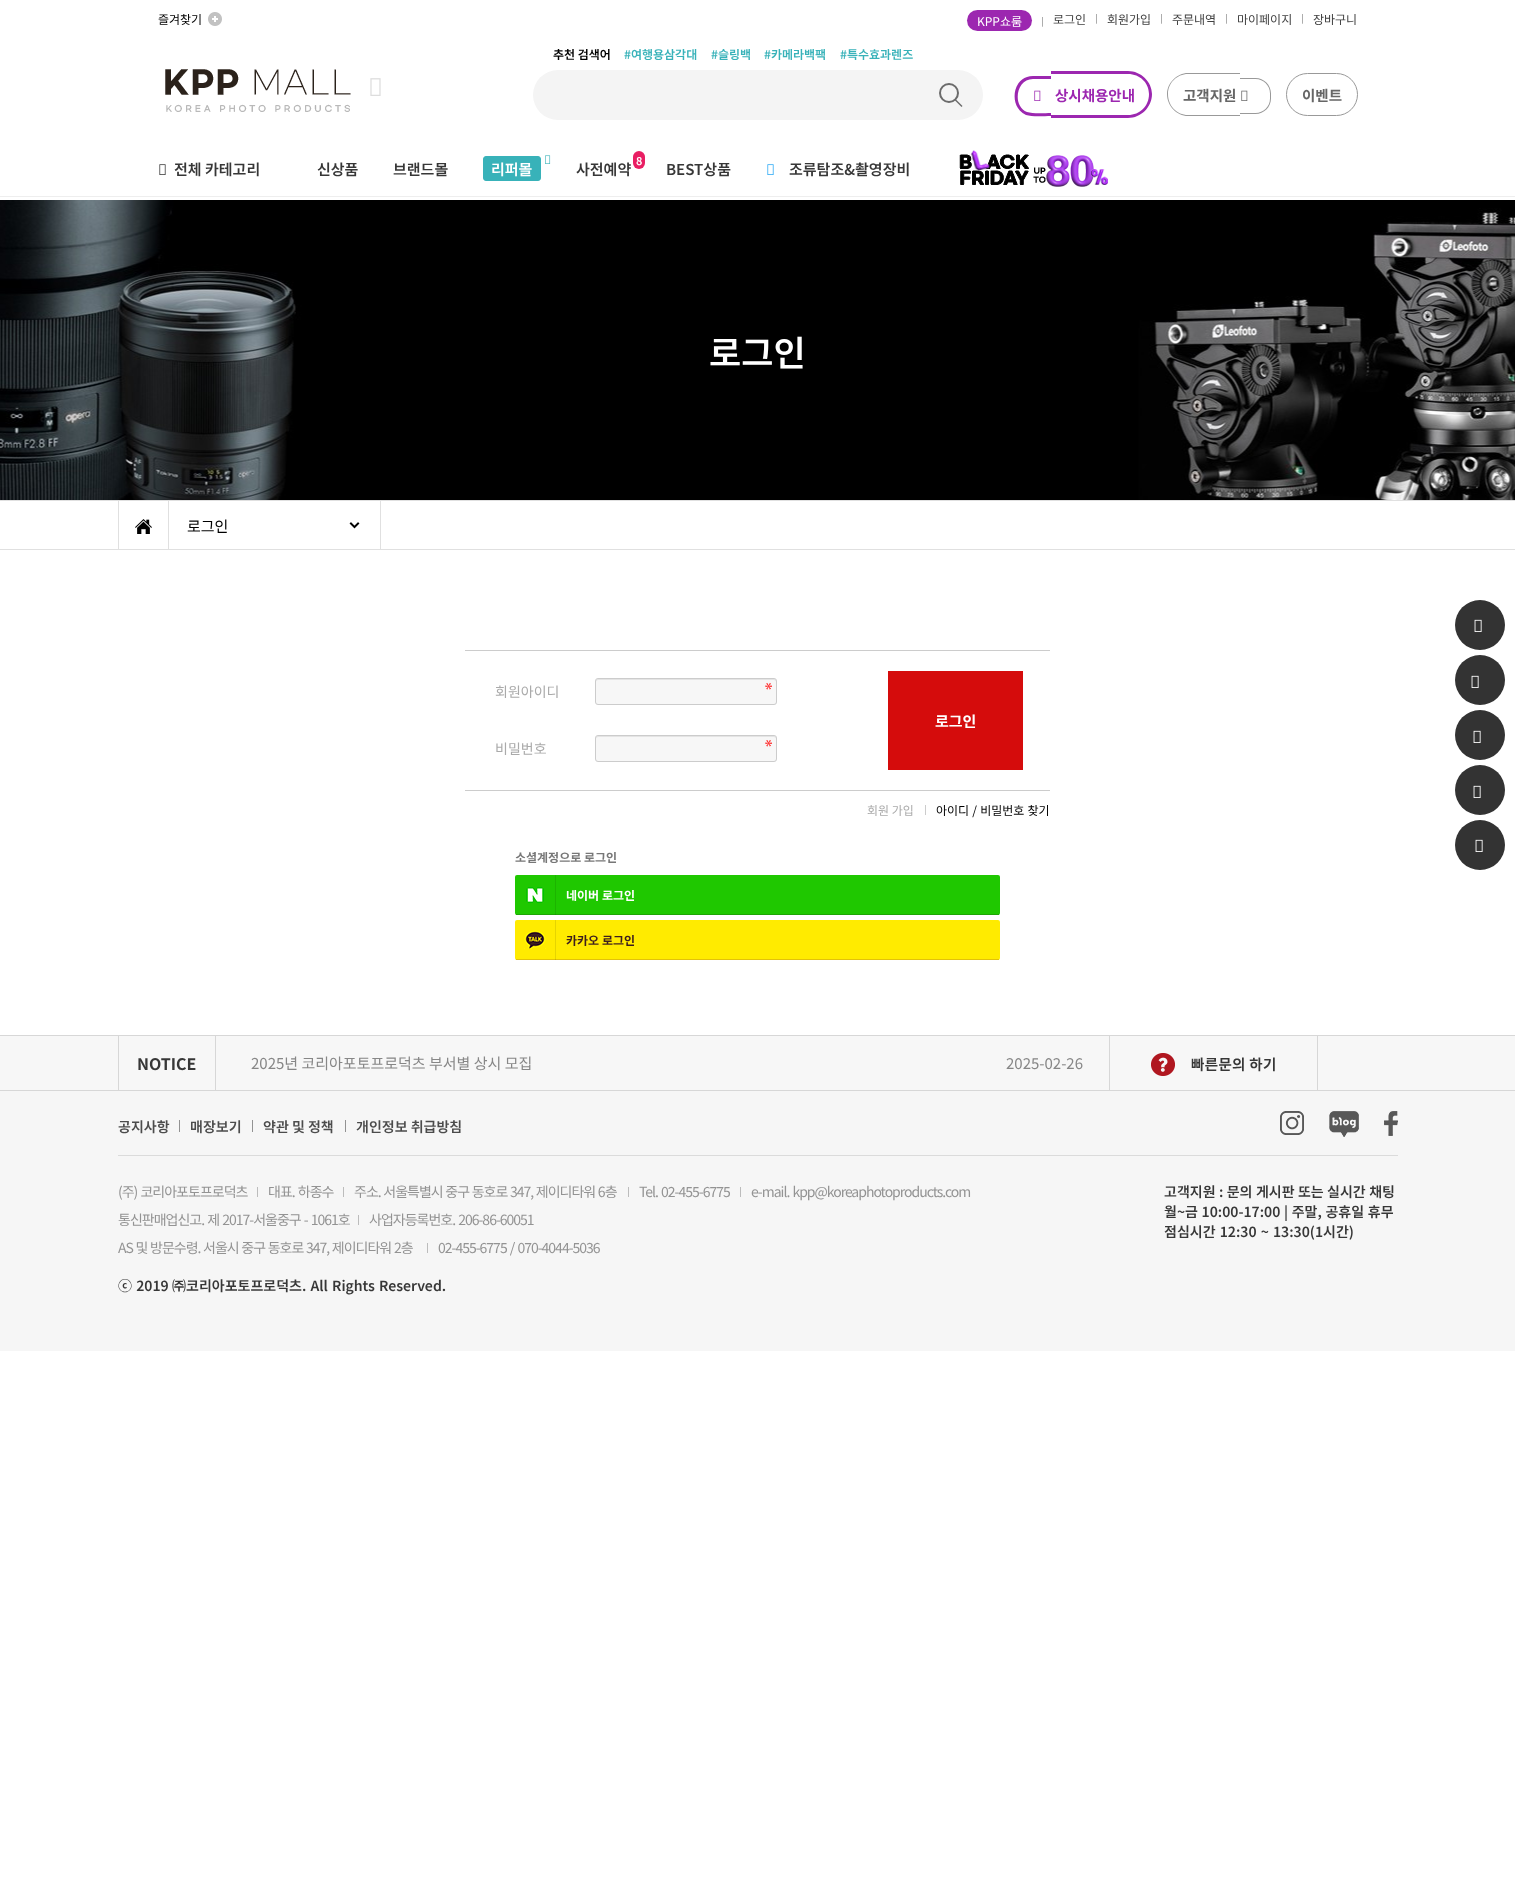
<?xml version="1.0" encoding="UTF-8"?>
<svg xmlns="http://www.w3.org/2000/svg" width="1515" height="1882">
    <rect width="100%" height="100%" fill="#FFFFFF"/>
    <text x="158" y="24" font-family="Noto Sans KR" font-size="12" fill="#000000">즐겨찾기</text>
    <image x="208" y="12" width="14" height="14" href="img_01.png"/>
    <image x="1042" y="17" width="1" height="10" href="img_02.png"/>
    <rect x="967" y="10" width="65" height="21" rx="10.5" fill="#9C27B0"/>
    <text x="977" y="26" font-family="Noto Sans KR" font-size="12" fill="#FFFFFF">KPP쇼룸</text>
    <image x="1096" y="14" width="1" height="10" href="img_02.png"/>
    <text x="1053" y="24" font-family="Noto Sans KR" font-size="12" fill="#414141">로그인</text>
    <image x="1161" y="14" width="1" height="10" href="img_02.png"/>
    <text x="1107" y="24" font-family="Noto Sans KR" font-size="12" fill="#414141">회원가입</text>
    <image x="1226" y="14" width="1" height="10" href="img_02.png"/>
    <text x="1172" y="24" font-family="Noto Sans KR" font-size="12" fill="#414141">주문내역</text>
    <image x="1302" y="14" width="1" height="10" href="img_02.png"/>
    <text x="1237" y="24" font-family="Noto Sans KR" font-size="12" fill="#414141">마이페이지</text>
    <text x="1313" y="24" font-family="Noto Sans KR" font-size="12" fill="#414141">장바구니</text>
    <text x="553" y="59" font-family="Noto Sans KR" font-size="12" font-weight="600" fill="#000000">추천 검색어</text>
    <text x="624" y="59" font-family="Noto Sans KR" font-size="12" font-weight="600" fill="#38B2B9">#여행용삼각대</text>
    <text x="711" y="59" font-family="Noto Sans KR" font-size="12" font-weight="600" fill="#38B2B9">#슬링백</text>
    <text x="764" y="59" font-family="Noto Sans KR" font-size="12" font-weight="600" fill="#38B2B9">#카메라백팩</text>
    <text x="840" y="59" font-family="Noto Sans KR" font-size="12" font-weight="600" fill="#38B2B9">#특수효과렌즈</text>
    <image x="165" y="69" width="186" height="43" href="img_03.png"/>
    <image x="370" y="78" width="11" height="18" href="img_04.png"/>
    <rect x="533" y="70" width="450" height="50" rx="25" fill="#F4F4F4"/>
    <circle cx="949" cy="93" r="9" fill="none" stroke="#6B6B6B" stroke-width="2"/>
    <path d="M 955.5 99 L 962.5 106 L 961.5 107 L 954.5 100 Z" fill="#6B6B6B"/>
    <path d="M 1033 76 H 1051 V 116 C 1044 116 1032 117 1026 115 C 1008 107 1012 76 1033 76 Z M 1033 79 H 1051 V 113 C 1045 113 1033 114 1027 112 C 1012 106 1016 79 1033 79 Z" fill="#9C27B0" fill-rule="evenodd"/>
    <path d="M 1051 71 H 1128 C 1141 71 1152 82 1152 94 C 1152 107 1141 118 1128 118 H 1051 Z M 1051 74 H 1128 C 1140 74 1149 83 1149 94 C 1149 106 1140 115 1128 115 H 1051 Z" fill="#9C27B0" fill-rule="evenodd"/>
    <image x="1034" y="90" width="7" height="11" href="img_05.png"/>
    <text x="1055" y="101" font-family="Noto Sans KR" font-size="14.5" font-weight="700" fill="#9C27B0">상시채용안내</text>
    <path d="M 1188 73 H 1240 V 116 H 1188 C 1177 116 1167 106 1167 94 C 1167 83 1177 73 1188 73 Z M 1188 74 H 1240 V 115 H 1188 C 1177 115 1168 106 1168 94 C 1168 83 1177 74 1188 74 Z" fill="#999999" fill-rule="evenodd"/>
    <path d="M 1240 78 H 1255.5 C 1264 78 1271 85 1271 93.5 V 98.5 C 1271 107 1264 114 1255.5 114 H 1240 Z M 1240 79 H 1255.5 C 1263.5 79 1270 85.5 1270 93.5 V 98.5 C 1270 106.5 1263.5 113 1255.5 113 H 1240 Z" fill="#999999" fill-rule="evenodd"/>
    <text x="1183" y="101" font-family="Noto Sans KR" font-size="14.5" font-weight="700" fill="#666666">고객지원</text>
    <image x="1241" y="90" width="7" height="11" href="img_06.png"/>
    <rect x="1286.5" y="73.5" width="71" height="42" rx="21" fill="none" stroke="#999999"/>
    <text x="1302" y="101" font-family="Noto Sans KR" font-size="14.5" font-weight="700" fill="#666666">이벤트</text>
    <rect x="0" y="196" width="1515" height="1" fill="#EEEEEE"/>
    <image x="159" y="164" width="7" height="11" href="img_07.png"/>
    <text x="174" y="175" font-family="Noto Sans KR" font-size="15" font-weight="600" fill="#373737">전체 카테고리</text>
    <text x="317" y="175" font-family="Noto Sans KR" font-size="15" font-weight="600" fill="#373737">신상품</text>
    <text x="393" y="175" font-family="Noto Sans KR" font-size="15" font-weight="600" fill="#373737">브랜드몰</text>
    <image x="545" y="155" width="6" height="9" href="img_08.png"/>
    <rect x="483.5" y="156.5" width="57" height="24" rx="2.5" fill="#38B2B9" stroke="#38B2B9"/>
    <text x="491" y="175" font-family="Noto Sans KR" font-size="15" font-weight="600" fill="#FFFFFF">리퍼몰</text>
    <rect x="633" y="151" width="12" height="18" rx="6" fill="#E91E63"/>
    <text x="636" y="165" font-family="Noto Sans KR" font-size="11" font-weight="600" fill="#FFFFFF">8</text>
    <text x="576" y="175" font-family="Noto Sans KR" font-size="15" font-weight="600" fill="#373737">사전예약</text>
    <text x="666" y="175" font-family="Noto Sans KR" font-size="15" font-weight="600" fill="#373737">BEST상품</text>
    <image x="767" y="164" width="7" height="11" href="img_09.png"/>
    <text x="789" y="175" font-family="Noto Sans KR" font-size="15" font-weight="600" fill="#373737">조류탐조&amp;촬영장비</text>
    <image x="959" y="150" width="149" height="37" href="img_10.png"/>
    <image x="0" y="200" width="1515" height="300" href="img_11.png"/>
    <text x="709" y="366" font-family="Noto Sans KR" font-size="35" font-weight="600" fill="#FFFFFF">로그인</text>
    <rect x="0" y="500" width="1515" height="1" fill="#E0E0E0"/>
    <rect x="0" y="549" width="1515" height="1" fill="#E0E0E0"/>
    <rect x="118" y="501" width="1" height="48" fill="#E0E0E0"/>
    <image x="135" y="519" width="17" height="15" href="img_12.png"/>
    <image x="349" y="522" width="11" height="7" href="img_13.png"/>
    <rect x="380" y="501" width="1" height="48" fill="#E0E0E0"/>
    <rect x="168" y="501" width="1" height="48" fill="#E0E0E0"/>
    <text x="187" y="532" font-family="Noto Sans KR" font-size="15" fill="#000000">로그인</text>
    <rect x="465" y="650" width="585" height="1" fill="#CCCCCC"/>
    <rect x="465" y="790" width="585" height="1" fill="#CCCCCC"/>
    <text x="495" y="697" font-family="Noto Sans KR" font-size="14" fill="#AAAAAA">회원아이디</text>
    <rect x="595" y="678" width="182" height="27" rx="3" fill="#F7F7F7"/>
    <image x="765" y="683" width="7" height="7" href="img_14.png"/>
    <path d="M 598 680 H 774 C 775 680 776 681 776 682 V 681 C 776 680 775 679 774 679 H 598 C 597 679 596 680 596 681 V 682 C 596 681 597 680 598 680 Z" fill="#E4E4E4"/>
    <rect x="595.5" y="678.5" width="181" height="26" rx="2.5" fill="none" stroke="#CCCCCC"/>
    <text x="495" y="754" font-family="Noto Sans KR" font-size="14" fill="#AAAAAA">비밀번호</text>
    <rect x="595" y="735" width="182" height="27" rx="3" fill="#F7F7F7"/>
    <image x="765" y="740" width="7" height="7" href="img_14.png"/>
    <path d="M 598 737 H 774 C 775 737 776 738 776 739 V 738 C 776 737 775 736 774 736 H 598 C 597 736 596 737 596 738 V 739 C 596 738 597 737 598 737 Z" fill="#E4E4E4"/>
    <rect x="595.5" y="735.5" width="181" height="26" rx="2.5" fill="none" stroke="#CCCCCC"/>
    <rect x="888" y="671" width="135" height="99" fill="#D50C0C"/>
    <text x="935" y="727" font-family="Noto Sans KR" font-size="15" font-weight="700" fill="#FFFFFF">로그인</text>
    <text x="867" y="815" font-family="Noto Sans KR" font-size="12" fill="#AAAAAA">회원 가입</text>
    <rect x="925" y="805" width="1" height="10" fill="#CCCCCC"/>
    <text x="936" y="815" word-spacing="0.5" font-family="Noto Sans KR" font-size="12" fill="#000000">아이디 / 비밀번호 찾기</text>
    <text x="515" y="862" font-family="Noto Sans KR" font-size="12" font-weight="700" fill="#777777">소셜계정으로 로그인</text>
    <rect x="515" y="875" width="485" height="40" rx="2" fill="#1FC800"/>
    <rect x="555" y="875" width="1" height="40" fill="#1CB400"/>
    <image x="526" y="887" width="18" height="16" href="img_15.png"/>
    <rect x="516" y="914" width="483" height="1" fill="#1EA505"/>
    <rect x="555" y="914" width="1" height="1" fill="#1B9505"/>
    <text x="566" y="900" font-family="Noto Sans KR" font-size="12" font-weight="700" fill="#FFFFFF">네이버</text>
    <text x="602" y="900" font-family="Noto Sans KR" font-size="12" font-weight="700" fill="#FFFFFF">로그인</text>
    <rect x="515" y="920" width="485" height="40" rx="2" fill="#FFEB00"/>
    <rect x="555" y="920" width="1" height="40" fill="#E6D400"/>
    <image x="524" y="930" width="22" height="19" href="img_16.png"/>
    <rect x="516" y="959" width="483" height="1" fill="#E2C10A"/>
    <rect x="555" y="959" width="1" height="1" fill="#CBAE09"/>
    <text x="566" y="945" font-family="Noto Sans KR" font-size="12" font-weight="700" fill="#3C1E1E">카카오</text>
    <text x="602" y="945" font-family="Noto Sans KR" font-size="12" font-weight="700" fill="#3C1E1E">로그인</text>
    <circle cx="1480" cy="625" r="25" fill="#333333"/>
    <image x="1474" y="619" width="8" height="13" href="img_17.png"/>
    <circle cx="1480" cy="680" r="25" fill="#333333"/>
    <image x="1471" y="675" width="8" height="13" href="img_17.png"/>
    <circle cx="1480" cy="735" r="25" fill="#333333"/>
    <image x="1473" y="730" width="8" height="13" href="img_17.png"/>
    <circle cx="1480" cy="790" r="25" fill="#333333"/>
    <image x="1473" y="785" width="8" height="13" href="img_17.png"/>
    <circle cx="1480" cy="845" r="25" fill="#333333"/>
    <image x="1475" y="839" width="8" height="13" href="img_17.png"/>
    <rect x="0" y="1036" width="1515" height="54" fill="#F7F7F7"/>
    <rect x="0" y="1035" width="1515" height="1" fill="#D7D7D7"/>
    <rect x="0" y="1090" width="1515" height="1" fill="#D7D7D7"/>
    <rect x="215" y="1036" width="1" height="54" fill="#D7D7D7"/>
    <rect x="118" y="1036" width="1" height="54" fill="#D7D7D7"/>
    <text x="137" y="1070" font-family="Noto Sans KR" font-size="16" font-weight="700" fill="#373737">NOTICE</text>
    <text x="251" y="1069" font-family="Noto Sans KR" font-size="15" fill="#878787">2025년 코리아포토프로덕츠 부서별 상시 모집</text>
    <text x="1006" y="1069" font-family="Noto Sans KR" font-size="15" fill="#878787">2025-02-26</text>
    <rect x="1317" y="1036" width="1" height="54" fill="#D7D7D7"/>
    <rect x="1109" y="1036" width="1" height="54" fill="#D7D7D7"/>
    <image x="1151" y="1053" width="124" height="23" href="img_18.png"/>
    <rect x="0" y="1091" width="1515" height="260" fill="#F6F6F6"/>
    <rect x="118" y="1155" width="1280" height="1" fill="#DBDBDB"/>
    <text x="118" y="1132" font-family="Noto Sans KR" font-size="14" font-weight="600" fill="#4C4C4C">공지사항</text>
    <rect x="179" y="1120" width="1" height="12" fill="#929292"/>
    <text x="190" y="1132" font-family="Noto Sans KR" font-size="14" font-weight="600" fill="#4C4C4C">매장보기</text>
    <rect x="252" y="1120" width="1" height="12" fill="#929292"/>
    <text x="263" y="1132" font-family="Noto Sans KR" font-size="14" font-weight="600" fill="#4C4C4C">약관 및 정책</text>
    <rect x="345" y="1120" width="1" height="12" fill="#929292"/>
    <text x="356" y="1132" font-family="Noto Sans KR" font-size="14" font-weight="600" fill="#4C4C4C">개인정보 취급방침</text>
    <image x="1280" y="1111" width="24" height="24" href="img_19.png"/>
    <image x="1329" y="1111" width="30" height="26" href="img_20.png"/>
    <image x="1384" y="1111" width="14" height="25" href="img_21.png"/>
    <text x="118" y="1197" word-spacing="1" font-family="Noto Sans KR" font-size="14" letter-spacing="-1" fill="#939393">(주) 코리아포토프로덕츠</text>
    <rect x="257" y="1187" width="1" height="10" fill="#BCBCBC"/>
    <text x="268" y="1197" word-spacing="1" font-family="Noto Sans KR" font-size="14" letter-spacing="-1" fill="#939393">대표. 하종수</text>
    <rect x="343" y="1187" width="1" height="10" fill="#BCBCBC"/>
    <text x="354" y="1197" word-spacing="0.5" font-family="Noto Sans KR" font-size="14" letter-spacing="-1" fill="#939393">주소. 서울특별시 중구 동호로 347, 제이디타워 6층</text>
    <rect x="628" y="1187" width="1" height="10" fill="#BCBCBC"/>
    <text x="639" y="1197" word-spacing="1" font-family="Noto Sans KR" font-size="14" letter-spacing="-1" fill="#939393">Tel. 02-455-6775</text>
    <rect x="740" y="1187" width="1" height="10" fill="#BCBCBC"/>
    <text x="751" y="1197" word-spacing="1" font-family="Noto Sans KR" font-size="14" letter-spacing="-1" fill="#939393">e-mail. kpp@koreaphotoproducts.com</text>
    <text x="118" y="1225" word-spacing="1" font-family="Noto Sans KR" font-size="14" letter-spacing="-1" fill="#939393">통신판매업신고. 제 2017-서울중구 - 1061호</text>
    <rect x="358" y="1215" width="1" height="10" fill="#BCBCBC"/>
    <text x="369" y="1225" word-spacing="1" font-family="Noto Sans KR" font-size="14" letter-spacing="-1" fill="#939393">사업자등록번호. 206-86-60051</text>
    <text x="118" y="1253" word-spacing="0.5" font-family="Noto Sans KR" font-size="14" letter-spacing="-1" fill="#939393">AS 및 방문수령. 서울시 중구 동호로 347, 제이디타워 2층</text>
    <rect x="427" y="1243" width="1" height="10" fill="#BCBCBC"/>
    <text x="438" y="1253" word-spacing="1" font-family="Noto Sans KR" font-size="14" letter-spacing="-1" fill="#939393">02-455-6775 / 070-4044-5036</text>
    <text x="118" y="1291" word-spacing="1" font-family="Noto Sans KR" font-size="14" font-weight="600" fill="#373737">ⓒ 2019</text>
    <text x="172" y="1291" word-spacing="1" font-family="Noto Sans KR" font-size="14" font-weight="600" fill="#373737">㈜코리아포토프로덕츠. All Rights Reserved.</text>
    <text font-family="Noto Sans KR" font-size="14" font-weight="600" fill="#373737">
        <tspan x="1164" y="1197" word-spacing="0.25">고객지원 : 문의 게시판 또는 실시간 채팅</tspan>
        <tspan x="1164" y="1217" word-spacing="0.5">월~금 10:00-17:00 | 주말, 공휴일 휴무</tspan>
        <tspan x="1164" y="1237" word-spacing="1">점심시간 12:30 ~ 13:30(1시간)</tspan>
    </text>
</svg>
